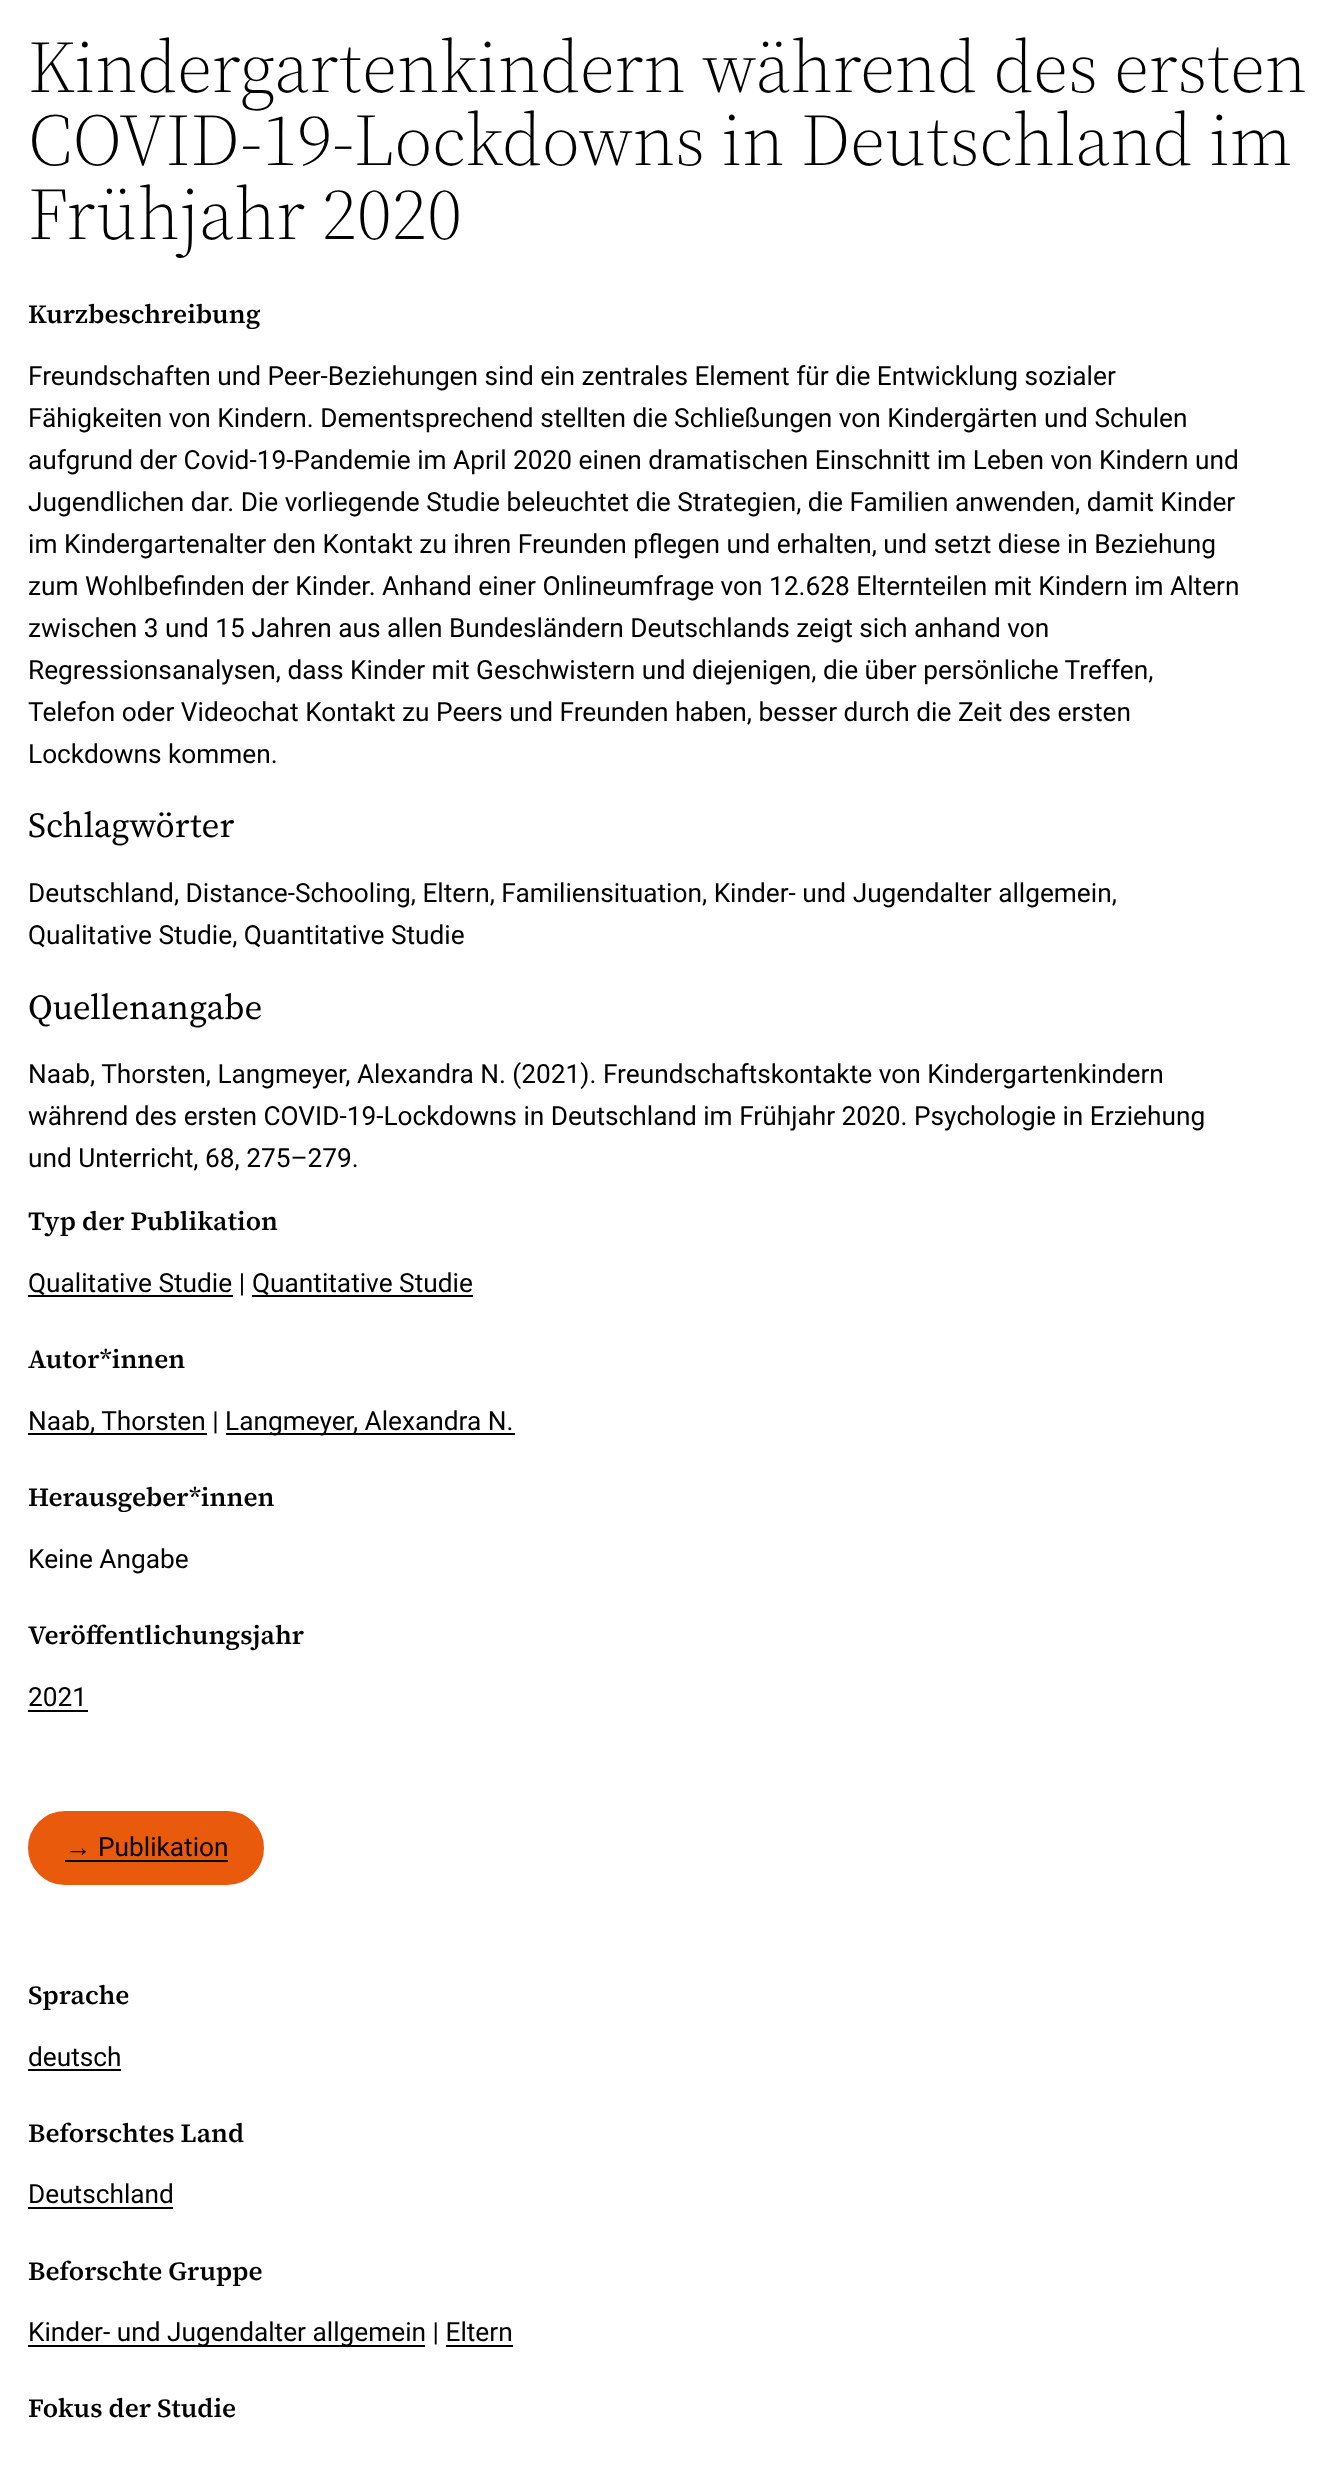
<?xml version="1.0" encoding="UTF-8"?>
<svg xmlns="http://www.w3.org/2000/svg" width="1336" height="2465">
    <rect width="100%" height="100%" fill="#FFFFFF"/>
    <text font-family="'Source Serif 4'" font-size="73.5" font-weight="300" fill="#000000">
        <tspan x="28" y="92">Kindergartenkindern während des ersten</tspan>
        <tspan x="28" y="165">COVID-19-Lockdowns in Deutschland im</tspan>
        <tspan x="28" y="239">Frühjahr 2020</tspan>
    </text>
    <text x="28" y="323" font-family="'Source Serif 4'" font-size="26.25" font-weight="600" fill="#000000">Kurzbeschreibung</text>
    <text font-family="Roboto" font-size="26.25" fill="#000000">
        <tspan x="28" y="385">Freundschaften und Peer-Beziehungen sind ein zentrales Element für die Entwicklung sozialer</tspan>
        <tspan x="28" y="427">Fähigkeiten von Kindern. Dementsprechend stellten die Schließungen von Kindergärten und Schulen</tspan>
        <tspan x="28" y="469">aufgrund der Covid-19-Pandemie im April 2020 einen dramatischen Einschnitt im Leben von Kindern und</tspan>
        <tspan x="28" y="511">Jugendlichen dar. Die vorliegende Studie beleuchtet die Strategien, die Familien anwenden, damit Kinder</tspan>
        <tspan x="28" y="553">im Kindergartenalter den Kontakt zu ihren Freunden pflegen und erhalten, und setzt diese in Beziehung</tspan>
        <tspan x="28" y="595">zum Wohlbefinden der Kinder. Anhand einer Onlineumfrage von 12.628 Elternteilen mit Kindern im Altern</tspan>
        <tspan x="28" y="637">zwischen 3 und 15 Jahren aus allen Bundesländern Deutschlands zeigt sich anhand von</tspan>
        <tspan x="28" y="679">Regressionsanalysen, dass Kinder mit Geschwistern und diejenigen, die über persönliche Treffen,</tspan>
        <tspan x="28" y="721">Telefon oder Videochat Kontakt zu Peers und Freunden haben, besser durch die Zeit des ersten</tspan>
        <tspan x="28" y="763">Lockdowns kommen.</tspan>
    </text>
    <text x="28" y="837" font-family="'Source Serif 4'" font-size="35" fill="#000000">Schlagwörter</text>
    <text font-family="Roboto" font-size="26.25" fill="#000000">
        <tspan x="28" y="902">Deutschland, Distance-Schooling, Eltern, Familiensituation, Kinder- und Jugendalter allgemein,</tspan>
        <tspan x="28" y="944">Qualitative Studie, Quantitative Studie</tspan>
    </text>
    <text x="28" y="1019" font-family="'Source Serif 4'" font-size="35" fill="#000000">Quellenangabe</text>
    <text font-family="Roboto" font-size="26.25" fill="#000000">
        <tspan x="28" y="1083">Naab, Thorsten, Langmeyer, Alexandra N. (2021). Freundschaftskontakte von Kindergartenkindern</tspan>
        <tspan x="28" y="1125">während des ersten COVID-19-Lockdowns in Deutschland im Frühjahr 2020. Psychologie in Erziehung</tspan>
        <tspan x="28" y="1167">und Unterricht, 68, 275–279.</tspan>
    </text>
    <text x="28" y="1230" font-family="'Source Serif 4'" font-size="26.25" font-weight="600" fill="#000000">Typ der Publikation</text>
    <rect x="28" y="1295" width="205" height="2" fill="#000000"/>
    <text x="28" y="1292" font-family="Roboto" font-size="26.25" fill="#000000">Qualitative Studie |</text>
    <rect x="252" y="1295" width="221" height="2" fill="#000000"/>
    <text x="252" y="1292" font-family="Roboto" font-size="26.25" fill="#000000">Quantitative Studie</text>
    <text x="28" y="1368" font-family="'Source Serif 4'" font-size="26.25" font-weight="600" fill="#000000">Autor*innen</text>
    <rect x="28" y="1433" width="179" height="2" fill="#000000"/>
    <text x="28" y="1430" font-family="Roboto" font-size="26.25" fill="#000000">Naab, Thorsten |</text>
    <rect x="226" y="1433" width="289" height="2" fill="#000000"/>
    <text x="225" y="1430" font-family="Roboto" font-size="26.25" fill="#000000">Langmeyer, Alexandra N.</text>
    <text x="28" y="1506" font-family="'Source Serif 4'" font-size="26.25" font-weight="600" fill="#000000">Herausgeber*innen</text>
    <text x="28" y="1568" font-family="Roboto" font-size="26.25" fill="#000000">Keine Angabe</text>
    <text x="28" y="1644" font-family="'Source Serif 4'" font-size="26.25" font-weight="600" fill="#000000">Veröffentlichungsjahr</text>
    <text x="28" y="1706" font-family="Roboto" font-size="26.25" fill="#000000">2021</text>
    <rect x="28" y="1710" width="60" height="2" fill="#000000"/>
    <rect x="29" y="1812" width="234" height="72" rx="36" fill="#E95A0C" stroke="#E95A0C" stroke-width="2"/>
    <text x="65" y="1856" font-family="Liberation Sans" font-size="26.25" fill="#000000">→</text>
    <rect x="65" y="1860" width="163" height="2" fill="#000000"/>
    <text x="98" y="1856" font-family="Roboto" font-size="26.25" fill="#000000">Publikation</text>
    <text x="28" y="2004" font-family="'Source Serif 4'" font-size="26.25" font-weight="600" fill="#000000">Sprache</text>
    <text x="28" y="2066" font-family="Roboto" font-size="26.25" fill="#000000">deutsch</text>
    <rect x="28" y="2069" width="93" height="2" fill="#000000"/>
    <text x="28" y="2142" font-family="'Source Serif 4'" font-size="26.25" font-weight="600" fill="#000000">Beforschtes Land</text>
    <text x="28" y="2203" font-family="Roboto" font-size="26.25" fill="#000000">Deutschland</text>
    <rect x="28" y="2207" width="145" height="2" fill="#000000"/>
    <text x="28" y="2280" font-family="'Source Serif 4'" font-size="26.25" font-weight="600" fill="#000000">Beforschte Gruppe</text>
    <rect x="28" y="2345" width="397" height="2" fill="#000000"/>
    <text x="28" y="2341" font-family="Roboto" font-size="26.25" fill="#000000">Kinder- und Jugendalter allgemein | Eltern</text>
    <rect x="446" y="2345" width="67" height="2" fill="#000000"/>
    <text x="28" y="2417" font-family="'Source Serif 4'" font-size="26.25" font-weight="600" fill="#000000">Fokus der Studie</text>
</svg>
